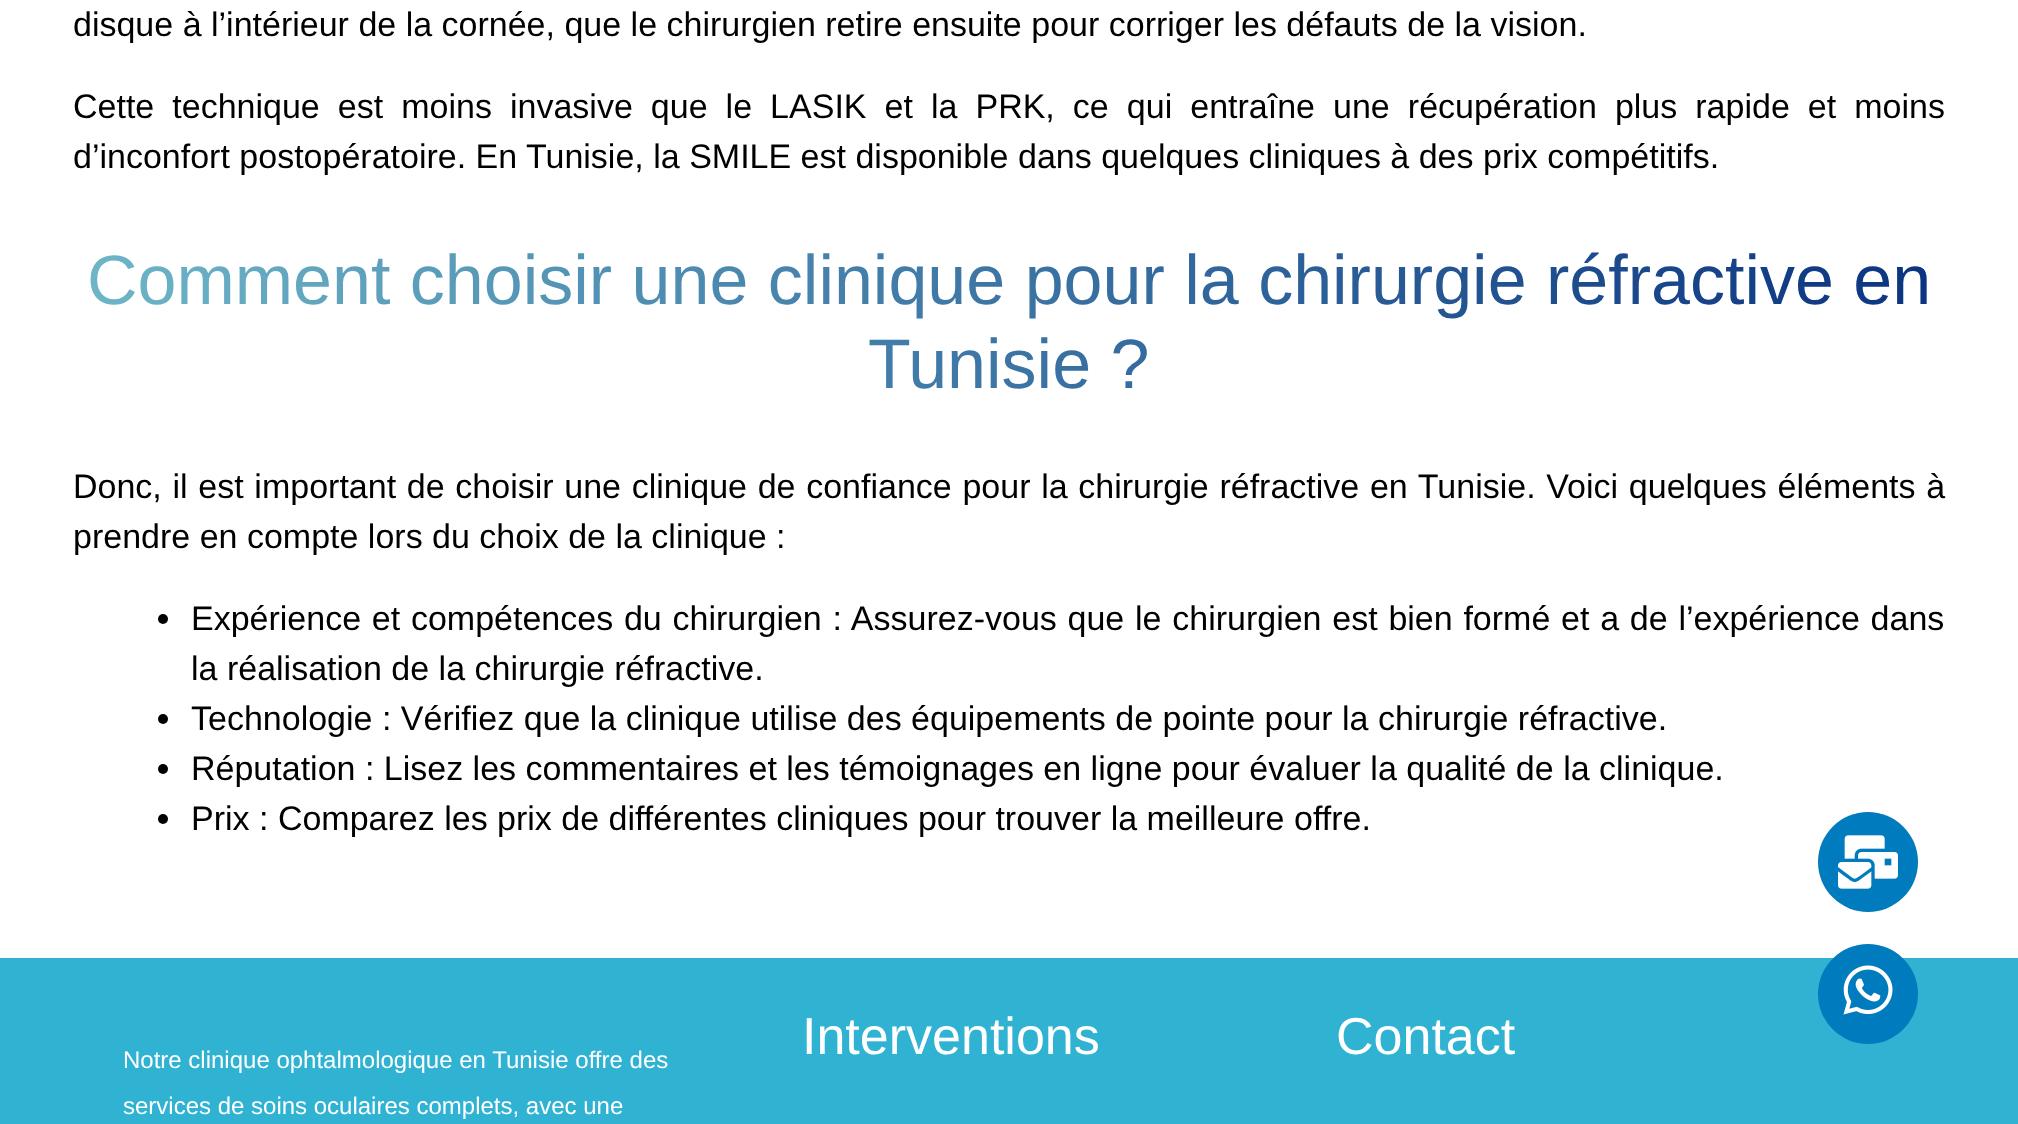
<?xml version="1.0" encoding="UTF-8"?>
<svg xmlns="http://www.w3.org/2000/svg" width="2018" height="1124">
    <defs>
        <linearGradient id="g1" gradientUnits="userSpaceOnUse" x1="73" y1="322" x2="1945" y2="322"><stop offset="0" stop-color="#6EB6C8"/><stop offset="1" stop-color="#0A3380"/></linearGradient>
    </defs>
    <rect width="100%" height="100%" fill="#FFFFFF"/>
    <text x="73" y="36" font-family="Liberation Sans" font-size="34" fill="#000000">disque à l’intérieur de la cornée, que le chirurgien retire ensuite pour corriger les défauts de la vision.</text>
    <text font-family="Liberation Sans" font-size="34" fill="#000000">
        <tspan x="73" y="118" word-spacing="8.6">Cette technique est moins invasive que le LASIK et la PRK, ce qui entraîne une récupération plus rapide et moins</tspan>
        <tspan x="73" y="168">d’inconfort postopératoire. En Tunisie, la SMILE est disponible dans quelques cliniques à des prix compétitifs.</tspan>
    </text>
    <text x="87" y="304" font-family="Liberation Sans" font-size="70" fill="url(#g1)">Comment choisir une clinique pour la chirurgie réfractive en</text>
    <text x="868" y="388" font-family="Liberation Sans" font-size="70" fill="url(#g1)">Tunisie ?</text>
    <text font-family="Liberation Sans" font-size="34" fill="#000000">
        <tspan x="73" y="498" word-spacing="1.25">Donc, il est important de choisir une clinique de confiance pour la chirurgie réfractive en Tunisie. Voici quelques éléments à</tspan>
        <tspan x="73" y="548">prendre en compte lors du choix de la clinique :</tspan>
    </text>
    <circle cx="163" cy="619" r="5" fill="#000000"/>
    <text font-family="Liberation Sans" font-size="34" fill="#000000">
        <tspan x="191" y="630" word-spacing="1.3">Expérience et compétences du chirurgien : Assurez-vous que le chirurgien est bien formé et a de l’expérience dans</tspan>
        <tspan x="191" y="680">la réalisation de la chirurgie réfractive.</tspan>
    </text>
    <circle cx="163" cy="719" r="5" fill="#000000"/>
    <text x="191" y="730" font-family="Liberation Sans" font-size="34" fill="#000000">Technologie : Vérifiez que la clinique utilise des équipements de pointe pour la chirurgie réfractive.</text>
    <circle cx="163" cy="769" r="5" fill="#000000"/>
    <text x="191" y="780" font-family="Liberation Sans" font-size="34" fill="#000000">Réputation : Lisez les commentaires et les témoignages en ligne pour évaluer la qualité de la clinique.</text>
    <circle cx="163" cy="819" r="5" fill="#000000"/>
    <text x="191" y="830" font-family="Liberation Sans" font-size="34" fill="#000000">Prix : Comparez les prix de différentes cliniques pour trouver la meilleure offre.</text>
    <circle cx="1868" cy="862" r="50" fill="#007BBD"/>
    <image x="1838" y="835" width="60" height="54" href="img_01.png"/>
    <rect x="0" y="958" width="2018" height="166" fill="#30B2D2"/>
    <circle cx="1868" cy="994" r="50" fill="#007BBD"/>
    <image x="1843" y="965" width="50" height="50" href="img_02.png"/>
    <text x="802" y="1054" font-family="Liberation Sans" font-size="52" fill="#FFFFFF">Interventions</text>
    <text x="1336" y="1054" font-family="Liberation Sans" font-size="52" fill="#FFFFFF">Contact</text>
    <text font-family="Liberation Sans" font-size="24" fill="#FFFFFF">
        <tspan x="123" y="1068">Notre clinique ophtalmologique en Tunisie offre des</tspan>
        <tspan x="123" y="1114">services de soins oculaires complets, avec une</tspan>
    </text>
</svg>
